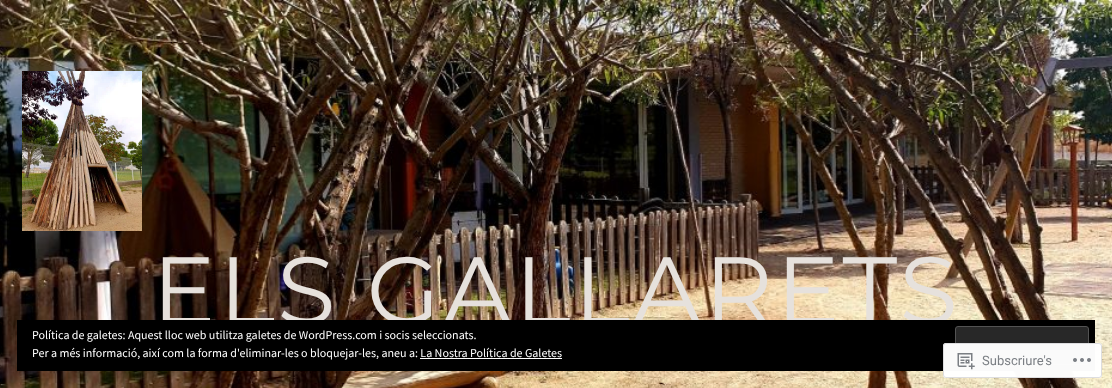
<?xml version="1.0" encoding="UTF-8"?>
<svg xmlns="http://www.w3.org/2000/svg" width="1112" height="388">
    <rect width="100%" height="100%" fill="#FFFFFF"/>
    <image x="0" y="0" width="1112" height="388" href="img_01.png"/>
    <image x="22" y="71" width="120" height="160" href="img_02.png"/>
    <text x="152" y="324" font-family="Montserrat" font-size="95.25" font-weight="100" letter-spacing="3" fill="#E6E1DC">ELS GALLARETS</text>
    <rect x="17" y="320" width="1078" height="51" fill="#000000"/>
    <text x="32" y="339" font-family="Source Sans Pro" font-size="12" fill="#FFFFFF">Política de galetes: Aquest lloc web utilitza galetes de WordPress.com i socis seleccionats.</text>
    <rect x="955.5" y="326.5" width="133" height="38" rx="2.5" fill="#282828" stroke="#535353"/>
    <text x="32" y="357" font-family="Source Sans Pro" font-size="12" fill="#FFFFFF">Per a més informació, així com la forma d'eliminar-les o bloquejar-les, aneu a: La Nostra Política de Galetes</text>
    <rect x="420" y="358" width="142" height="1" fill="#FFFFFF"/>
    <rect x="943" y="343" width="159" height="35" rx="3" fill="#FFFFFF" fill-opacity="0.98"/>
    <rect x="943.5" y="343.5" width="158" height="34" rx="2.5" fill="none" stroke="#DCDCDE" stroke-opacity="0.98"/>
    <image x="957" y="353" width="18" height="17" href="img_03.png"/>
    <text x="982" y="365" font-family="Roboto" font-size="13" fill="#7B7F84">Subscriure's</text>
    <image x="1073" y="358" width="18" height="4" href="img_04.png"/>
</svg>
